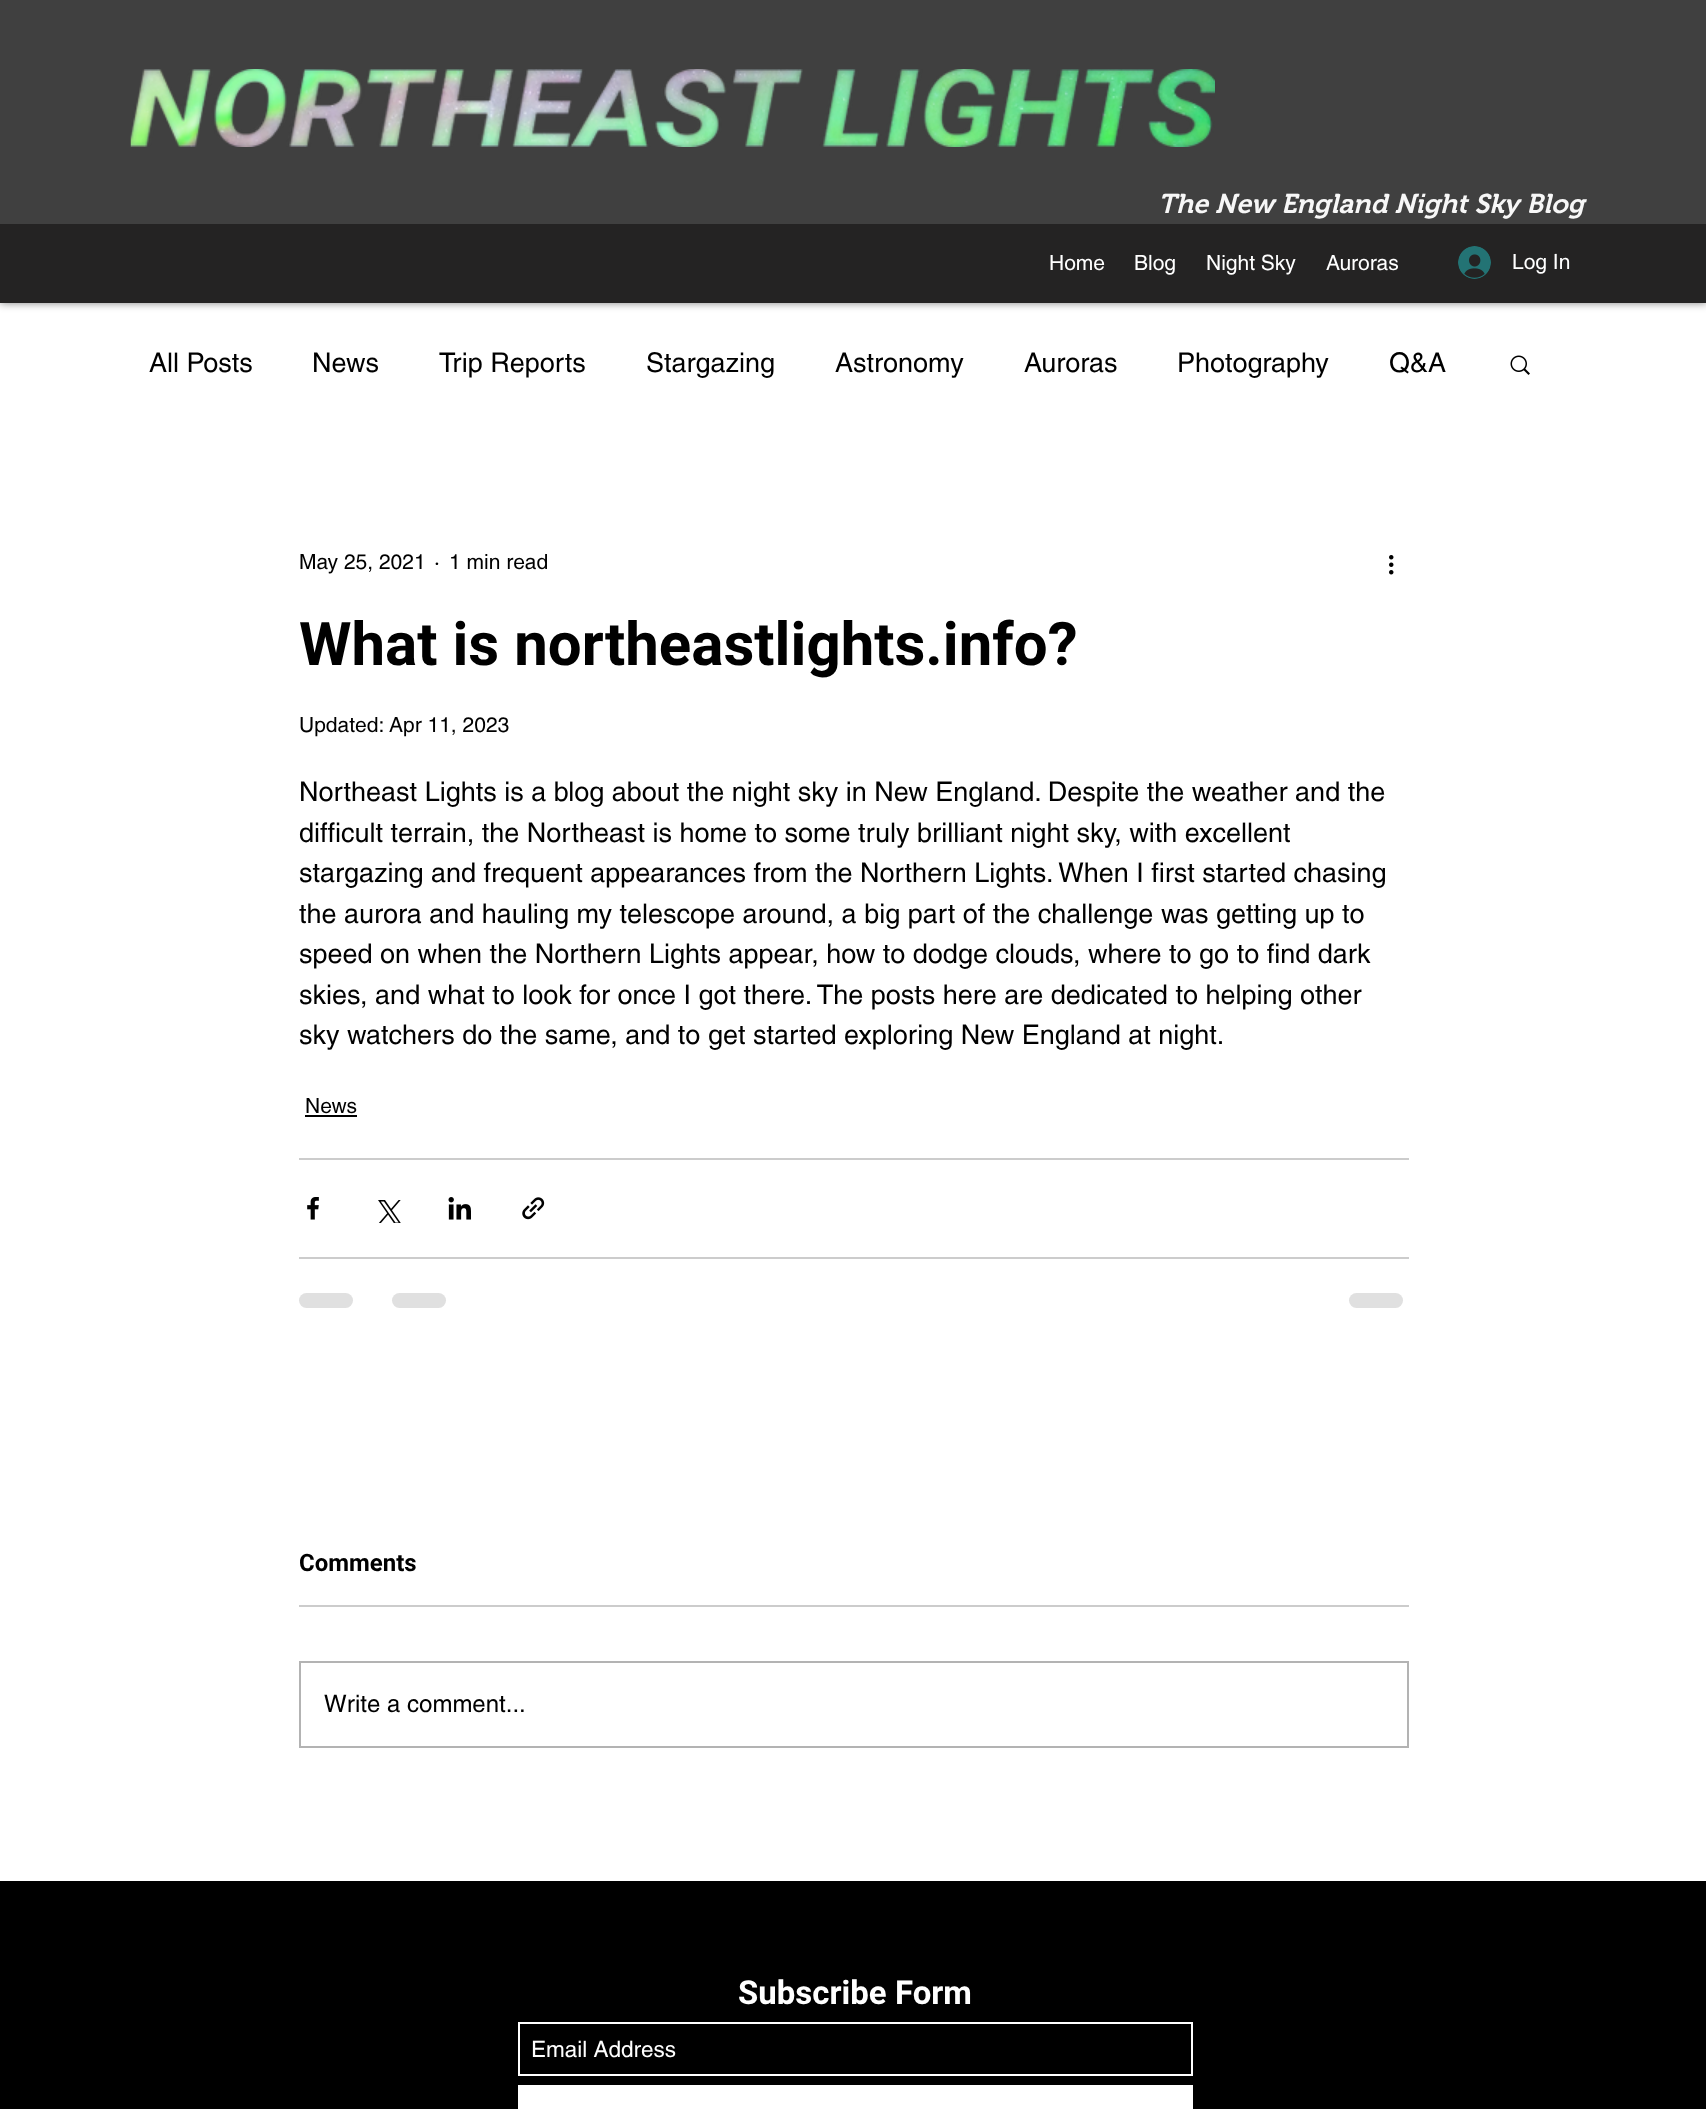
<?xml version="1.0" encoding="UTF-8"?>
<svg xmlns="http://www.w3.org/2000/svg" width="1706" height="2109">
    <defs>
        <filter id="blur1" x="-50%" y="-200%" width="200%" height="500%"><feGaussianBlur stdDeviation="4"/></filter>
    </defs>
    <rect width="100%" height="100%" fill="#FFFFFF"/>
    <rect x="0" y="0" width="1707" height="303" fill="#000000" fill-opacity="0.5" filter="url(#blur1)"/>
    <rect x="0" y="0" width="1706" height="224" fill="#404040"/>
    <image x="130" y="69" width="1085" height="78" href="img_01.png"/>
    <text x="1158" y="213" font-family="'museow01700'" font-size="27" font-weight="600" font-style="italic" fill="#F7F7F7">The New England Night Sky Blog</text>
    <rect x="0" y="224" width="1706" height="79" fill="#242323"/>
    <text x="1049" y="270" font-family="helvetica" font-size="21" fill="#FFFFFF">Home</text>
    <text x="1134" y="270" font-family="helvetica" font-size="21" fill="#FFFFFF">Blog</text>
    <text x="1206" y="270" font-family="helvetica" font-size="21" fill="#FFFFFF">Night Sky</text>
    <text x="1326" y="270" font-family="helvetica" font-size="21" fill="#FFFFFF">Auroras</text>
    <image x="1458" y="246" width="33" height="33" href="img_02.png"/>
    <text x="1512" y="269" font-family="helvetica" font-size="21" fill="#FFFFFF">Log In</text>
    <text x="149" y="372" font-family="helvetica" font-size="27" fill="#000000">All Posts</text>
    <text x="312" y="372" font-family="helvetica" font-size="27" fill="#000000">News</text>
    <text x="439" y="372" font-family="helvetica" font-size="27" fill="#000000">Trip Reports</text>
    <text x="646" y="372" font-family="helvetica" font-size="27" fill="#000000">Stargazing</text>
    <text x="835" y="372" font-family="helvetica" font-size="27" fill="#000000">Astronomy</text>
    <text x="1024" y="372" font-family="helvetica" font-size="27" fill="#000000">Auroras</text>
    <text x="1177" y="372" font-family="helvetica" font-size="27" fill="#000000">Photography</text>
    <text x="1389" y="372" font-family="helvetica" font-size="27" fill="#000000">Q&amp;A</text>
    <image x="1510" y="355" width="20" height="20" href="img_03.png"/>
    <text x="299" y="569" font-family="helvetica" font-size="21" fill="#000000">May 25, 2021</text>
    <text x="434" y="569" font-family="helvetica" font-size="21" fill="#000000">·</text>
    <text x="449" y="569" font-family="helvetica" font-size="21" fill="#000000">1 min read</text>
    <image x="1389" y="555" width="5" height="20" href="img_04.png"/>
    <text x="299" y="665" font-family="Roboto" font-size="60" font-weight="700" fill="#000000">What is northeastlights.info?</text>
    <text x="299" y="732" font-family="helvetica" font-size="21" fill="#000000">Updated: Apr 11, 2023</text>
    <text font-family="helvetica" font-size="27" fill="#000000">
        <tspan x="299" y="801">Northeast Lights is a blog about the night sky in New England. Despite the weather and the</tspan>
        <tspan x="299" y="842">difficult terrain, the Northeast is home to some truly brilliant night sky, with excellent</tspan>
        <tspan x="299" y="882">stargazing and frequent appearances from the Northern Lights. When I first started chasing</tspan>
        <tspan x="299" y="923">the aurora and hauling my telescope around, a big part of the challenge was getting up to</tspan>
        <tspan x="299" y="963">speed on when the Northern Lights appear, how to dodge clouds, where to go to find dark</tspan>
        <tspan x="299" y="1004">skies, and what to look for once I got there. The posts here are dedicated to helping other</tspan>
        <tspan x="299" y="1044">sky watchers do the same, and to get started exploring New England at night.</tspan>
    </text>
    <text x="305" y="1113" font-family="helvetica" font-size="21" fill="#000000">News</text>
    <rect x="305" y="1115" width="52" height="2" fill="#000000"/>
    <rect x="299" y="1158" width="1110" height="2" fill="#CCCCCC"/>
    <image x="307" y="1197" width="12" height="23" href="img_05.png"/>
    <image x="378" y="1200" width="23" height="23" href="img_06.png"/>
    <image x="448" y="1197" width="23" height="23" href="img_07.png"/>
    <image x="522" y="1197" width="23" height="23" href="img_08.png"/>
    <rect x="299" y="1257" width="1110" height="2" fill="#CCCCCC"/>
    <rect x="299" y="1293" width="54" height="15" rx="7.5" fill="#E0E0E0"/>
    <rect x="392" y="1293" width="54" height="15" rx="7.5" fill="#E0E0E0"/>
    <rect x="1349" y="1293" width="54" height="15" rx="7.5" fill="#E0E0E0"/>
    <text x="299" y="1571" font-family="Roboto" font-size="24" font-weight="700" fill="#000000">Comments</text>
    <rect x="299" y="1605" width="1110" height="2" fill="#CCCCCC"/>
    <rect x="300" y="1662" width="1108" height="85" fill="none" stroke="#B3B3B3" stroke-width="2"/>
    <text x="324" y="1712" font-family="helvetica" font-size="24" fill="#000000">Write a comment...</text>
    <rect x="0" y="1881" width="1706" height="228" fill="#000000"/>
    <text x="738" y="2004" font-family="Roboto" font-size="33" font-weight="700" fill="#FFFFFF">Subscribe Form</text>
    <rect x="519" y="2023" width="673" height="52" fill="none" stroke="#FFFFFF" stroke-width="2"/>
    <text x="531" y="2057" font-family="helvetica" font-size="22.5" fill="#FFFFFF">Email Address</text>
    <rect x="518" y="2085" width="675" height="24" fill="#FFFFFF"/>
</svg>
